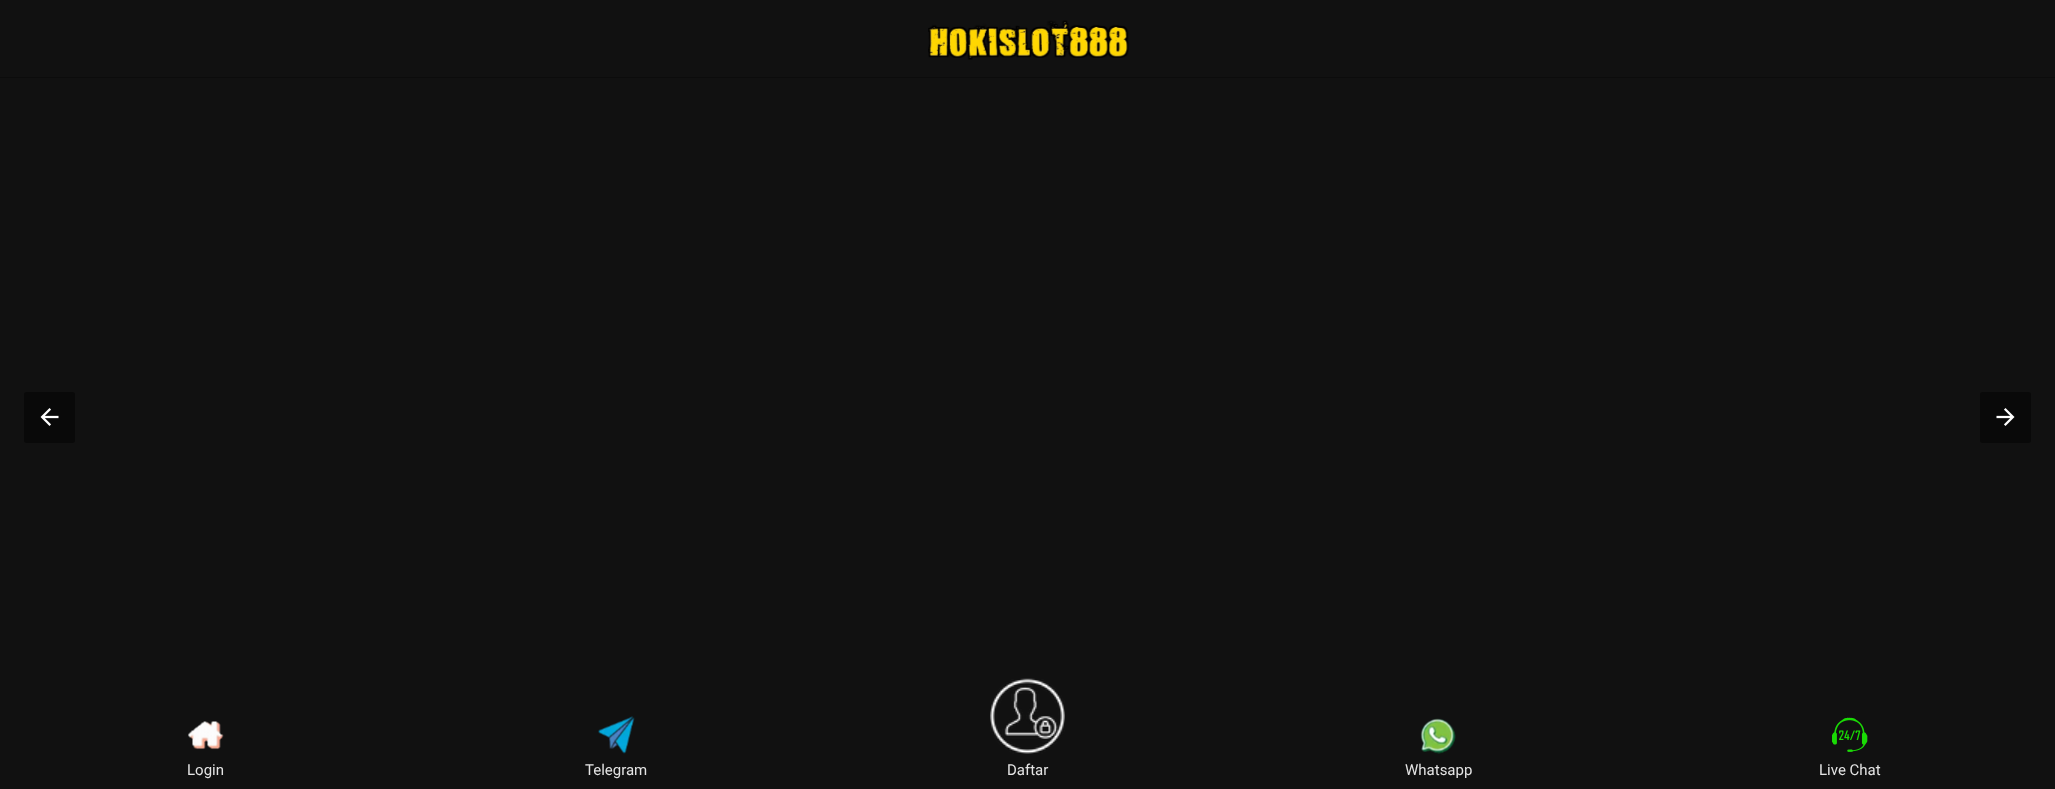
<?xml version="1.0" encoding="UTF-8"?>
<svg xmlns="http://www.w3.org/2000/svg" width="2055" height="789">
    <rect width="100%" height="100%" fill="#111111"/>
    <rect x="0" y="77" width="2055" height="1" fill="#0C0C0C"/>
    <image x="928" y="20" width="201" height="40" href="img_01.png"/>
    <rect x="24" y="392" width="51" height="51" rx="3" fill="#090909"/>
    <image x="40" y="408" width="19" height="18" href="img_02.png"/>
    <rect x="1980" y="392" width="51" height="51" rx="3" fill="#090909"/>
    <image x="1996" y="408" width="19" height="18" href="img_03.png"/>
    <image x="188" y="721" width="36" height="29" href="img_04.png"/>
    <text x="187" y="775" font-family="Roboto" font-size="15" fill="#E4E4E4">Login</text>
    <image x="598" y="716" width="37" height="38" href="img_05.png"/>
    <text x="585" y="775" font-family="Roboto" font-size="15" fill="#E4E4E4">Telegram</text>
    <image x="990" y="678" width="75" height="76" href="img_06.png"/>
    <text x="1007" y="775" font-family="Roboto" font-size="15" fill="#E4E4E4">Daftar</text>
    <image x="1420" y="718" width="36" height="36" href="img_07.png"/>
    <text x="1405" y="775" font-family="Roboto" font-size="15" fill="#E4E4E4">Whatsapp</text>
    <image x="1832" y="717" width="36" height="35" href="img_08.png"/>
    <text x="1819" y="775" font-family="Roboto" font-size="15" fill="#E4E4E4">Live Chat</text>
</svg>
